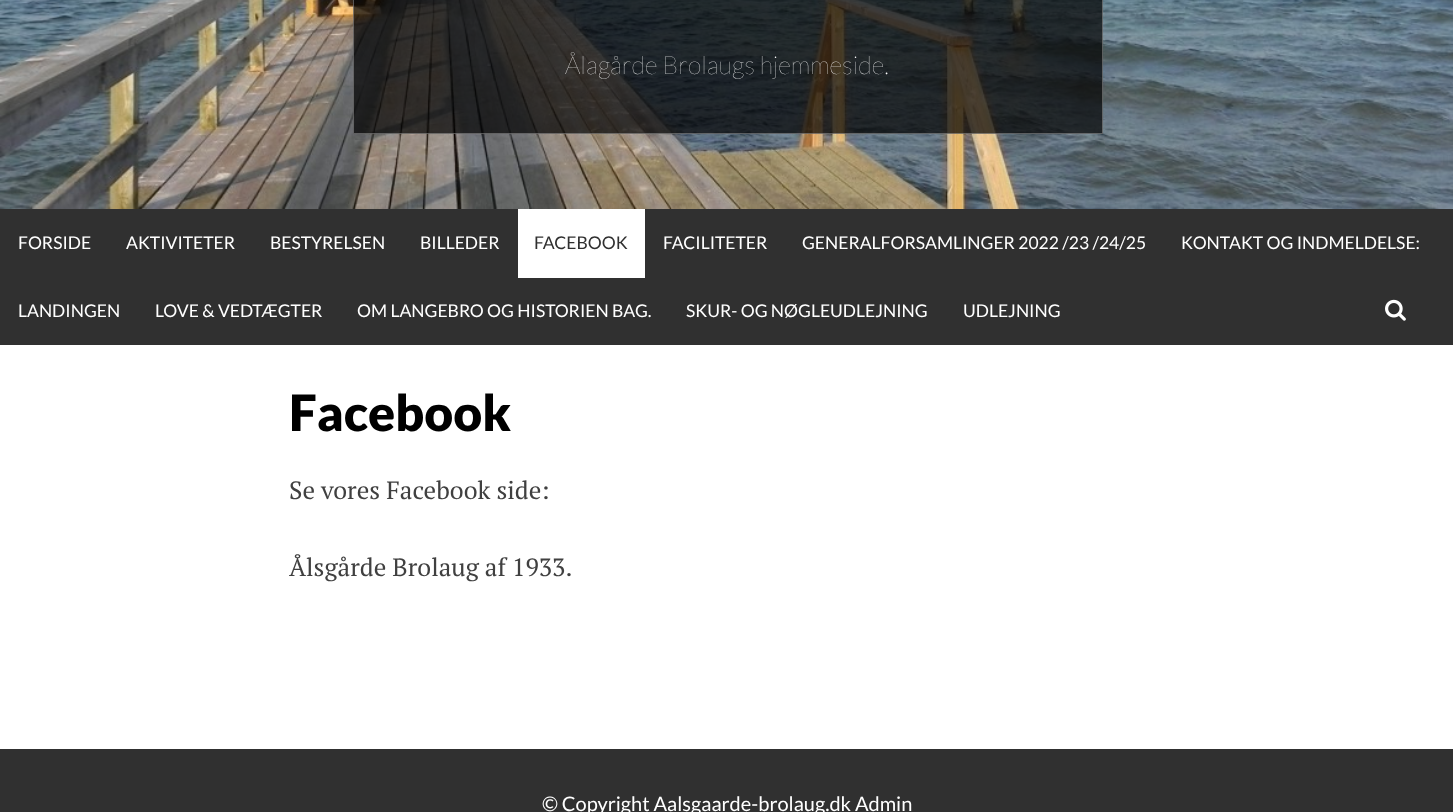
<?xml version="1.0" encoding="UTF-8"?>
<svg xmlns="http://www.w3.org/2000/svg" width="1453" height="812">
    <rect width="100%" height="100%" fill="#FFFFFF"/>
    <image x="0" y="0" width="1453" height="209" href="img_01.png"/>
    <rect x="353" y="0" width="750" height="134" fill="#000000" fill-opacity="0.7"/>
    <rect x="353.5" y="-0.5" width="749" height="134" fill="none" stroke="#FFFFFF" stroke-opacity="0.3"/>
    <text x="565" y="74" font-family="Lato" font-size="25" font-weight="100" fill="#FFFFFF">Ålagårde Brolaugs hjemmeside.</text>
    <rect x="0" y="209" width="1453" height="136" fill="#303030"/>
    <text x="18" y="249" font-family="Lato" font-size="17.5" fill="#FFFFFF">FORSIDE</text>
    <text x="126" y="249" font-family="Lato" font-size="17.5" fill="#FFFFFF">AKTIVITETER</text>
    <text x="270" y="249" font-family="Lato" font-size="17.5" fill="#FFFFFF">BESTYRELSEN</text>
    <text x="420" y="249" font-family="Lato" font-size="17.5" fill="#FFFFFF">BILLEDER</text>
    <rect x="518" y="209" width="127" height="69" fill="#FFFFFF"/>
    <text x="534" y="249" font-family="Lato" font-size="17.5" fill="#303030">FACEBOOK</text>
    <text x="663" y="249" font-family="Lato" font-size="17.5" fill="#FFFFFF">FACILITETER</text>
    <text x="802" y="249" font-family="Lato" font-size="17.5" fill="#FFFFFF">GENERALFORSAMLINGER 2022 /23 /24/25</text>
    <text x="1181" y="249" font-family="Lato" font-size="17.5" fill="#FFFFFF">KONTAKT OG INDMELDELSE:</text>
    <text x="18" y="317" font-family="Lato" font-size="17.5" fill="#FFFFFF">LANDINGEN</text>
    <text x="155" y="317" font-family="Lato" font-size="17.5" fill="#FFFFFF">LOVE &amp; VEDTÆGTER</text>
    <text x="357" y="317" font-family="Lato" font-size="17.5" fill="#FFFFFF">OM LANGEBRO OG HISTORIEN BAG.</text>
    <text x="686" y="317" font-family="Lato" font-size="17.5" fill="#FFFFFF">SKUR- OG NØGLEUDLEJNING</text>
    <text x="963" y="317" font-family="Lato" font-size="17.5" fill="#FFFFFF">UDLEJNING</text>
    <image x="1385" y="299" width="21" height="22" href="img_02.png"/>
    <text x="289" y="431" font-family="Lato" font-size="50" font-weight="900" fill="#000000">Facebook</text>
    <text x="289" y="499" font-family="PT Serif" font-size="25" fill="#404040">Se vores Facebook side:</text>
    <text x="289" y="576" font-family="PT Serif" font-size="25" fill="#404040">Ålsgårde Brolaug af 1933.</text>
    <rect x="0" y="749" width="1453" height="63" fill="#303030"/>
    <text x="542" y="811" font-family="Lato" font-size="20" fill="#FFFFFF">© Copyright Aalsgaarde-brolaug.dk Admin</text>
</svg>
